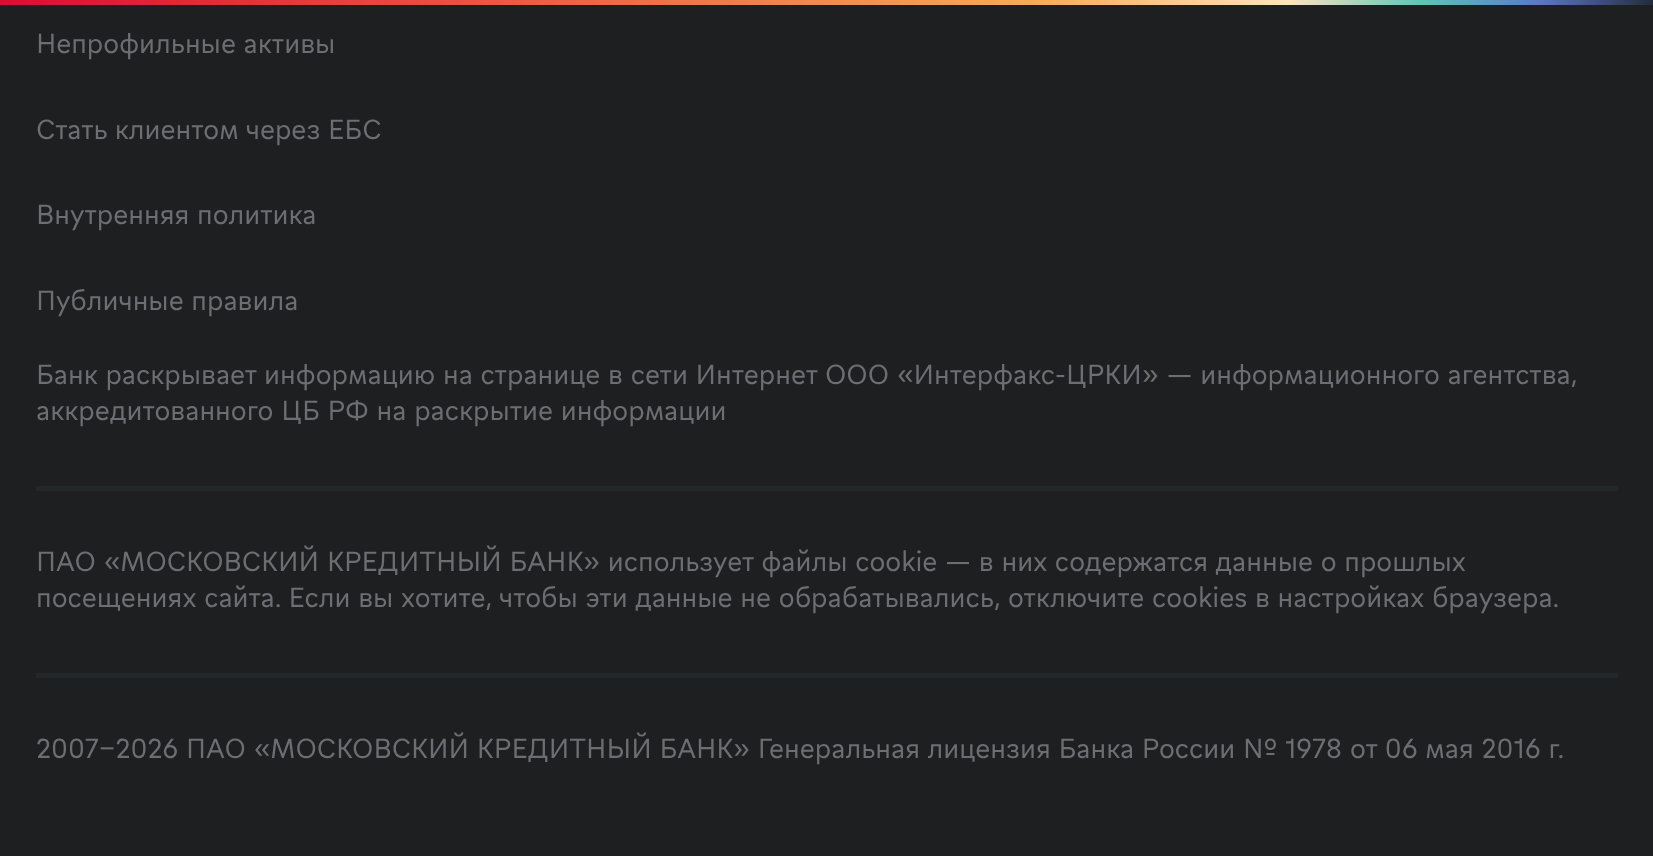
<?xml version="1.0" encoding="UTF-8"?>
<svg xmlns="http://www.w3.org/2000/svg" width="1653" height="856">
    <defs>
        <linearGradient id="g1" gradientUnits="userSpaceOnUse" x1="-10" y1="2.3" x2="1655" y2="2.2"><stop offset="0" stop-color="#DD0A34"/><stop offset="0.63" stop-color="#F8AC54"/><stop offset="0.78" stop-color="#FFE4BF"/><stop offset="0.86" stop-color="#5CC5B8"/><stop offset="0.93" stop-color="#5C79C5"/><stop offset="1" stop-color="#222A3C"/></linearGradient>
    </defs>
    <rect width="100%" height="100%" fill="#1E1F20"/>
    <rect x="0" y="0" width="1653" height="5" fill="url(#g1)"/>
    <text x="36" y="53" font-family="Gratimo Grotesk" font-size="27" fill="#6D6D73">Непрофильные активы</text>
    <text x="36" y="139" font-family="Gratimo Grotesk" font-size="27" fill="#6D6D73">Стать клиентом через ЕБС</text>
    <text x="36" y="224" font-family="Gratimo Grotesk" font-size="27" fill="#6D6D73">Внутренняя политика</text>
    <text x="36" y="310" font-family="Gratimo Grotesk" font-size="27" fill="#6D6D73">Публичные правила</text>
    <text font-family="Gratimo Grotesk" font-size="27" fill="#6D6D73">
        <tspan x="36" y="384">Банк раскрывает информацию на странице в сети Интернет ООО «Интерфакс-ЦРКИ» — информационного агентства,</tspan>
        <tspan x="36" y="420">аккредитованного ЦБ РФ на раскрытие информации</tspan>
    </text>
    <rect x="36" y="486" width="1582" height="5" fill="#242729"/>
    <text font-family="Gratimo Grotesk" font-size="27" fill="#6D6D73">
        <tspan x="36" y="571">ПАО «МОСКОВСКИЙ КРЕДИТНЫЙ БАНК» использует файлы cookie — в них содержатся данные о прошлых</tspan>
        <tspan x="36" y="607">посещениях сайта. Если вы хотите, чтобы эти данные не обрабатывались, отключите cookies в настройках браузера.</tspan>
    </text>
    <rect x="36" y="673" width="1582" height="5" fill="#242729"/>
    <text x="36" y="758" font-family="Gratimo Grotesk" font-size="27" fill="#6D6D73">2007–2026 ПАО «МОСКОВСКИЙ КРЕДИТНЫЙ БАНК» Генеральная лицензия Банка России № 1978 от 06 мая 2016 г.</text>
</svg>
